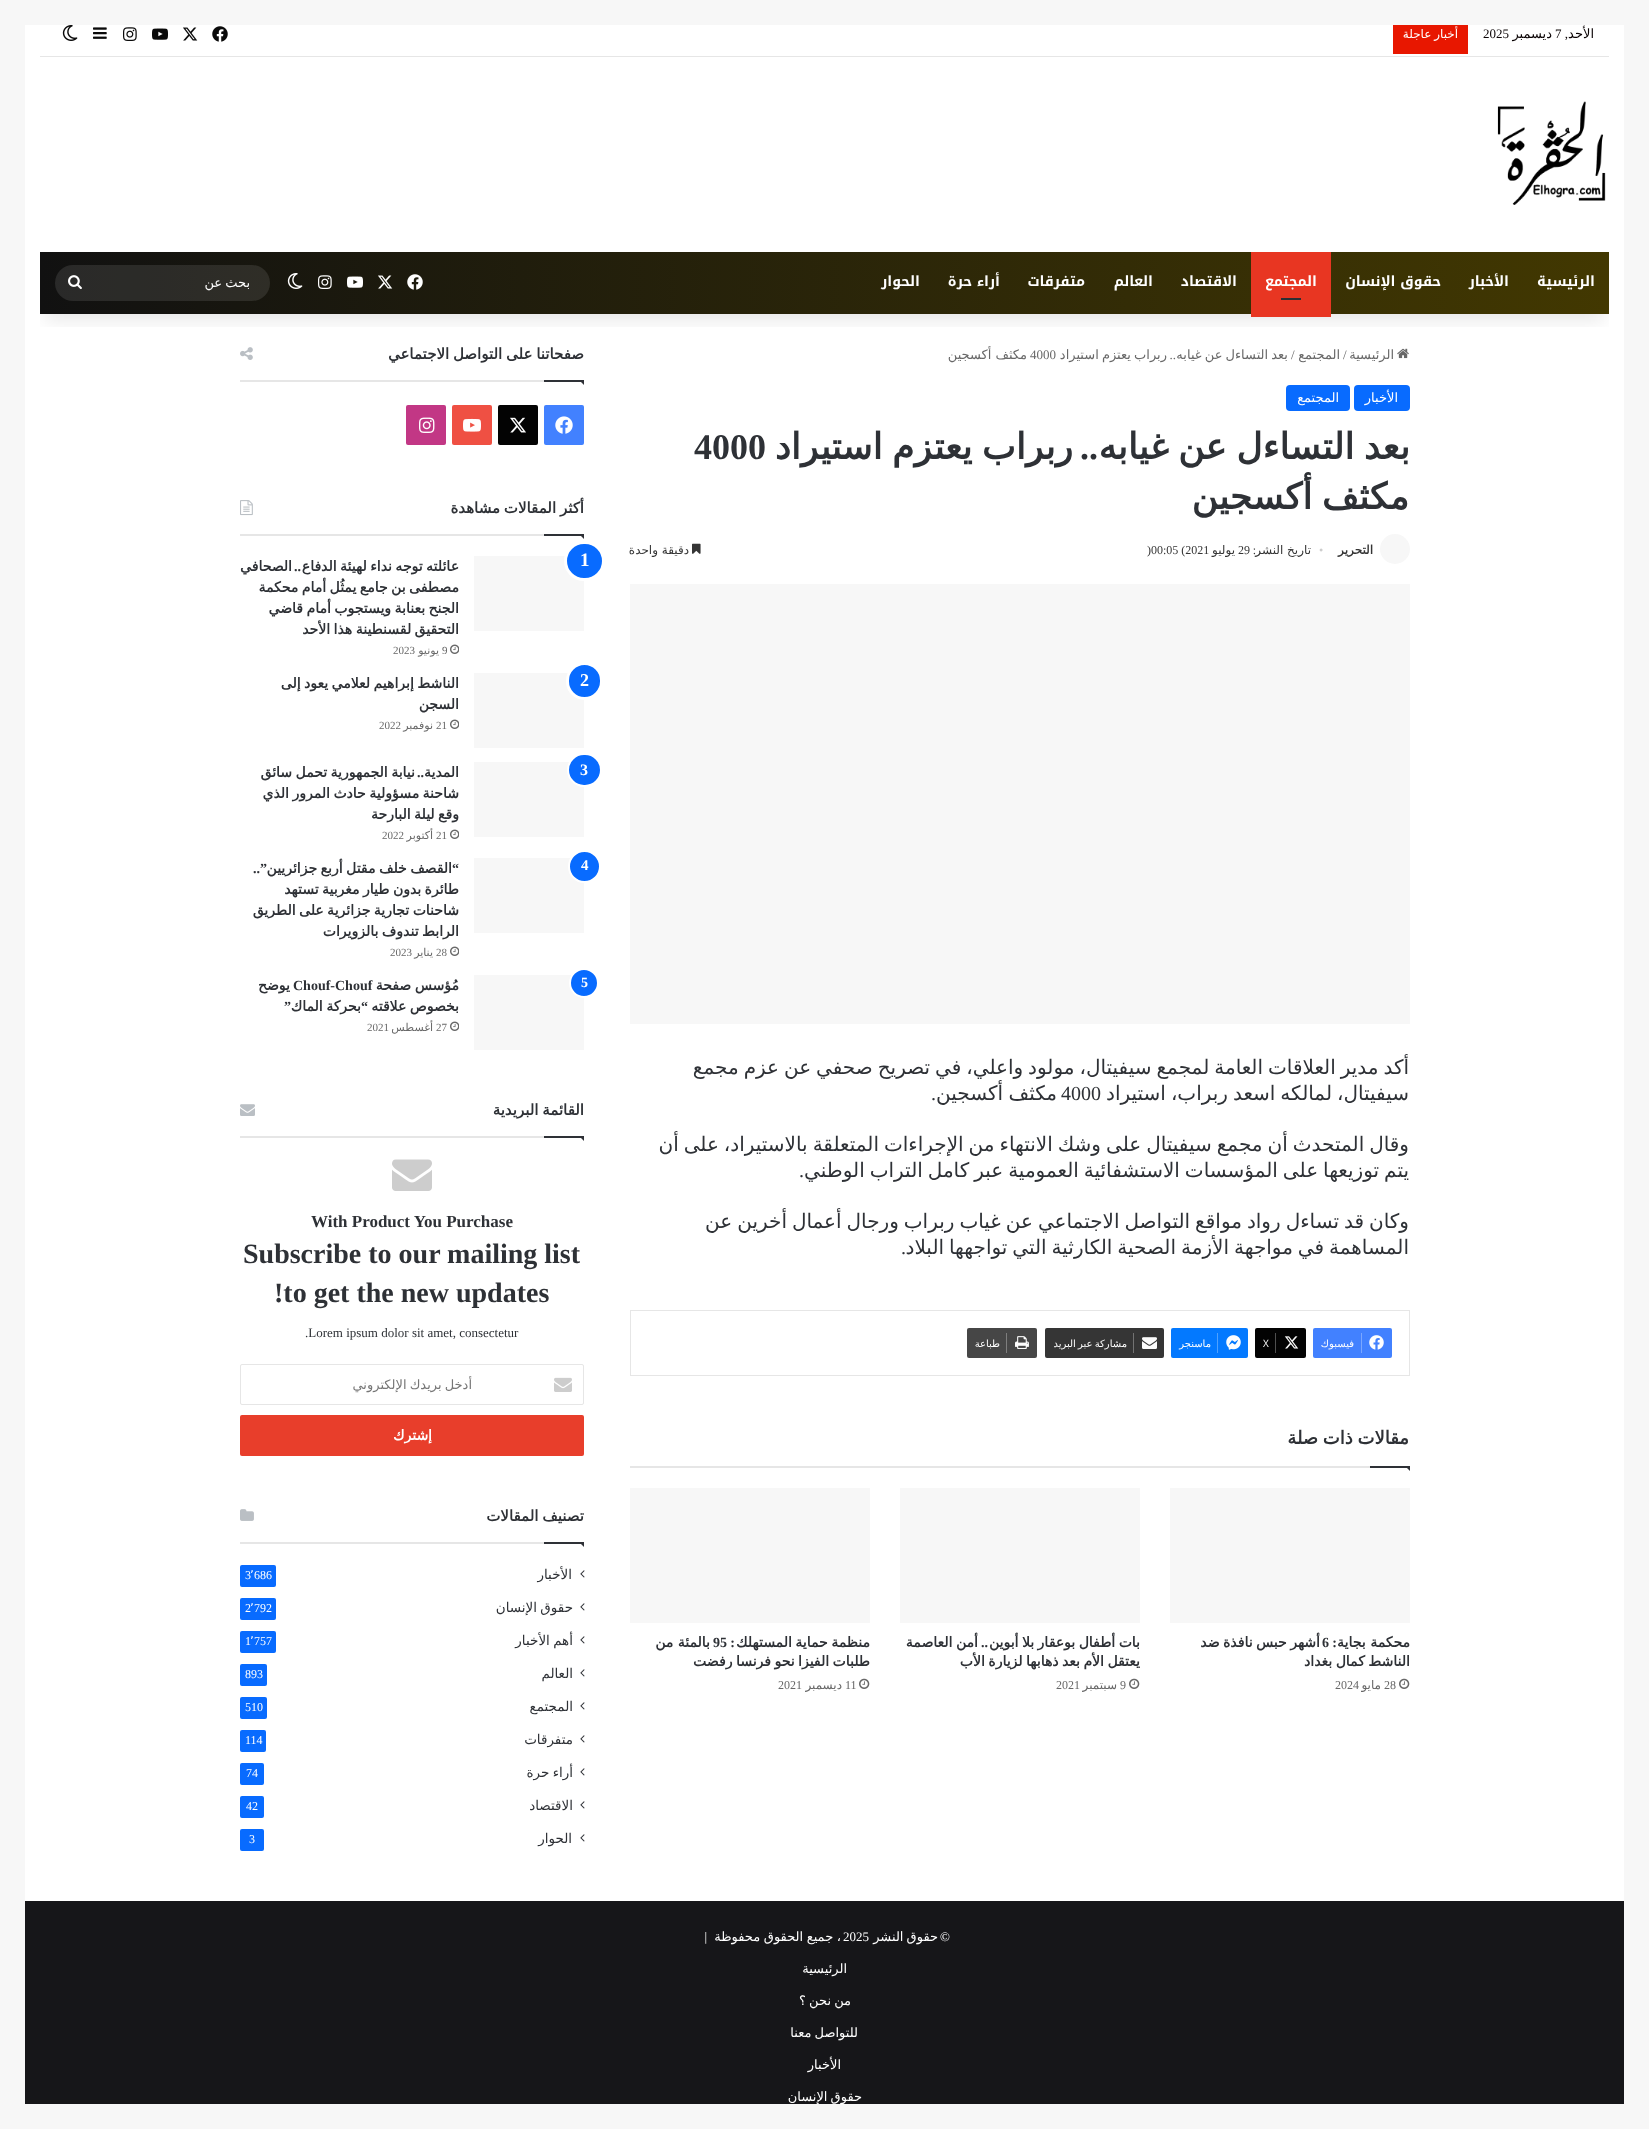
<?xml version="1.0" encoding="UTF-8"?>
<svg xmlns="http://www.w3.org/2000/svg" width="1649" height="2129">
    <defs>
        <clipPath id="clip1"><rect x="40" y="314" width="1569" height="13"/></clipPath>
        <filter id="blur1" x="-50%" y="-200%" width="200%" height="500%"><feGaussianBlur stdDeviation="10"/></filter>
        <linearGradient id="g1" gradientUnits="userSpaceOnUse" x1="40" y1="283" x2="1609" y2="283"><stop offset="0" stop-color="#111111"/><stop offset="1" stop-color="#423801"/></linearGradient>
    </defs>
    <rect width="100%" height="100%" fill="#F7F7F7"/>
    <rect x="25" y="25" width="1599" height="1876" fill="#FFFFFF"/>
    <image x="1397" y="348" width="12" height="11" href="img_14.png"/>
    <image x="240" y="347" width="13" height="13" href="img_22.png"/>
    <g clip-path="url(#clip1)">
        <rect x="45" y="58" width="1559" height="261" fill="#000000" fill-opacity="0.1" filter="url(#blur1)"/>
    </g>
    <rect x="40" y="56" width="1569" height="1" fill="#E6E6E6"/>
    <text x="1594" y="38" font-family="DejaVu Sans" font-size="13" direction="rtl" fill="#0A0304">الأحد</text>
    <text x="1568" y="38" font-family="Liberation Serif" font-size="13" direction="rtl" fill="#0A0304">,</text>
    <text x="1555" y="38" font-family="Liberation Serif" font-size="13" fill="#0A0304">7</text>
    <text x="1552" y="38" font-family="DejaVu Sans" font-size="13" direction="rtl" fill="#0A0304">ديسمبر</text>
    <text x="1483" y="38" font-family="Liberation Serif" font-size="13" fill="#0A0304">2025</text>
    <rect x="1393" y="25" width="75" height="29" fill="#E81700"/>
    <text x="1458" y="38" word-spacing="-1" font-family="DejaVu Sans" font-size="12" direction="rtl" fill="#FFFFFF">أخبار عاجلة</text>
    <image x="212" y="26" width="16" height="16" href="img_01.png"/>
    <image x="183" y="27" width="15" height="14" href="img_02.png"/>
    <image x="152" y="28" width="16" height="12" href="img_03.png"/>
    <image x="123" y="27" width="14" height="14" href="img_04.png"/>
    <image x="93" y="27" width="14" height="12" href="img_05.png"/>
    <image x="62" y="25" width="16" height="16" href="img_06.png"/>
    <image x="1497" y="101" width="109" height="104" href="img_07.png"/>
    <rect x="40" y="252" width="1569" height="62" fill="url(#g1)"/>
    <text x="1595" y="286" font-family="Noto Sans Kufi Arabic" font-size="14" font-weight="700" direction="rtl" fill="#FFFFFF">الرئيسية</text>
    <text x="1509" y="286" font-family="Noto Sans Kufi Arabic" font-size="14" font-weight="700" direction="rtl" fill="#FFFFFF">الأخبار</text>
    <text x="1441" y="286" font-family="Noto Sans Kufi Arabic" font-size="14" font-weight="700" direction="rtl" fill="#FFFFFF">حقوق الإنسان</text>
    <rect x="1251" y="252" width="80" height="65" fill="#E83622"/>
    <text x="1317" y="286" font-family="Noto Sans Kufi Arabic" font-size="14" font-weight="700" direction="rtl" fill="#FFFFFF">المجتمع</text>
    <rect x="1281" y="298" width="20" height="2" fill="#2C2F34"/>
    <text x="1237" y="286" font-family="Noto Sans Kufi Arabic" font-size="14" font-weight="700" direction="rtl" fill="#FFFFFF">الاقتصاد</text>
    <text x="1153" y="286" font-family="Noto Sans Kufi Arabic" font-size="14" font-weight="700" direction="rtl" fill="#FFFFFF">العالم</text>
    <text x="1085" y="286" font-family="Noto Sans Kufi Arabic" font-size="14" font-weight="700" direction="rtl" fill="#FFFFFF">متفرقات</text>
    <text x="1000" y="286" font-family="Noto Sans Kufi Arabic" font-size="14" font-weight="700" direction="rtl" fill="#FFFFFF">أراء حرة</text>
    <text x="920" y="286" font-family="Noto Sans Kufi Arabic" font-size="14" font-weight="700" direction="rtl" fill="#FFFFFF">الحوار</text>
    <image x="407" y="274" width="16" height="16" href="img_08.png"/>
    <image x="378" y="275" width="15" height="14" href="img_09.png"/>
    <image x="347" y="276" width="16" height="12" href="img_10.png"/>
    <image x="318" y="275" width="14" height="14" href="img_11.png"/>
    <image x="287" y="273" width="16" height="16" href="img_12.png"/>
    <rect x="55" y="265" width="215" height="36" rx="18" fill="#FFFFFF" fill-opacity="0.1"/>
    <text x="250" y="287" word-spacing="-1" font-family="DejaVu Sans" font-size="13" direction="rtl" fill="#FFFFFF">بحث عن</text>
    <image x="68" y="275" width="14" height="15" href="img_13.png"/>
    <text x="1394" y="359" font-family="DejaVu Sans" font-size="13" direction="rtl" fill="#686868">الرئيسية</text>
    <text x="1343" y="359" font-family="Liberation Serif" font-size="13" fill="#686868">/</text>
    <text x="1340" y="359" font-family="DejaVu Sans" font-size="13" direction="rtl" fill="#686868">المجتمع</text>
    <text x="1291" y="359" font-family="Liberation Serif" font-size="13" fill="#686868">/</text>
    <text x="1288" y="359" word-spacing="-1" font-family="DejaVu Sans" font-size="13" direction="rtl" fill="#686868">بعد التساءل عن غيابه</text>
    <text x="1176" y="359" font-family="Liberation Serif" font-size="13" direction="rtl" fill="#686868">..</text>
    <text x="1167" y="359" word-spacing="-1" font-family="DejaVu Sans" font-size="13" direction="rtl" fill="#686868">ربراب يعتزم استيراد</text>
    <text x="1030" y="359" font-family="Liberation Serif" font-size="13" fill="#686868">4000</text>
    <text x="1027" y="359" font-family="DejaVu Sans" font-size="13" direction="rtl" fill="#686868">مكثف أكسجين</text>
    <rect x="1354" y="385" width="56" height="26" rx="4" fill="#086BFF"/>
    <text x="1398" y="402" font-family="DejaVu Sans" font-size="13" direction="rtl" fill="#FFFFFF">الأخبار</text>
    <rect x="1286" y="385" width="64" height="26" rx="4" fill="#086BFF"/>
    <text x="1339" y="402" font-family="DejaVu Sans" font-size="13" direction="rtl" fill="#FFFFFF">المجتمع</text>
    <text x="1410" y="459" word-spacing="-2" font-family="DejaVu Sans" font-size="36" font-weight="700" direction="rtl" fill="#2E3136">بعد التساءل عن غيابه</text>
    <text x="1098" y="459" font-family="Liberation Serif" font-size="36" font-weight="700" direction="rtl" fill="#2E3136">..</text>
    <text x="1073" y="459" word-spacing="-2" font-family="DejaVu Sans" font-size="36" font-weight="700" direction="rtl" fill="#2E3136">ربراب يعتزم استيراد</text>
    <text x="694" y="459" font-family="Liberation Serif" font-size="36" font-weight="700" fill="#2E3136">4000</text>
    <text x="1409" y="509" word-spacing="-2" font-family="DejaVu Sans" font-size="36" font-weight="700" direction="rtl" fill="#2E3136">مكثف أكسجين</text>
    <circle cx="1395" cy="549" r="15" fill="#F7F7F7"/>
    <text x="1373" y="554" font-family="DejaVu Sans" font-size="12" font-weight="700" direction="rtl" fill="#353535">التحرير</text>
    <text x="1319" y="554" font-family="Liberation Serif" font-size="12" fill="#CDCDCD">•</text>
    <text x="1256" y="554" font-family="Liberation Serif" font-size="12" direction="rtl" fill="#353535">:</text>
    <text x="1311" y="554" font-family="DejaVu Sans" font-size="12" direction="rtl" fill="#353535">تاريخ النشر</text>
    <text x="1238" y="554" font-family="Liberation Serif" font-size="12" fill="#353535">29</text>
    <text x="1235" y="554" font-family="DejaVu Sans" font-size="12" direction="rtl" fill="#353535">يوليو</text>
    <text x="1147" y="554" font-family="Liberation Serif" font-size="12" fill="#353535">)00:05 (2021</text>
    <image x="692" y="543" width="9" height="11" href="img_15.png"/>
    <text x="689" y="554" font-family="DejaVu Sans" font-size="12" direction="rtl" fill="#353535">دقيقة واحدة</text>
    <rect x="630" y="584" width="780" height="440" fill="#F7F7F7"/>
    <text font-family="DejaVu Sans" font-size="20" direction="rtl" fill="#2E3136">
        <tspan x="1409" y="1074" word-spacing="-1.4">أكد مدير العلاقات العامة لمجمع سيفيتال، مولود واعلي، في تصريح صحفي عن عزم مجمع</tspan>
        <tspan x="1409" y="1100" word-spacing="-1.4">سيفيتال، لمالكه اسعد ربراب، استيراد</tspan>
    </text>
    <text x="1061" y="1100" font-family="Liberation Serif" font-size="20" fill="#2E3136">4000</text>
    <text x="1057" y="1100" word-spacing="-1" font-family="DejaVu Sans" font-size="20" direction="rtl" fill="#2E3136">مكثف أكسجين</text>
    <text x="936" y="1100" font-family="Liberation Serif" font-size="20" direction="rtl" fill="#2E3136">.</text>
    <text font-family="DejaVu Sans" font-size="20" direction="rtl" fill="#2E3136">
        <tspan x="1409" y="1151" word-spacing="-1.4">وقال المتحدث أن مجمع سيفيتال على وشك الانتهاء من الإجراءات المتعلقة بالاستيراد، على أن</tspan>
        <tspan x="1409" y="1177" word-spacing="-1.4">يتم توزيعها على المؤسسات الاستشفائية العمومية عبر كامل التراب الوطني</tspan>
    </text>
    <text x="804" y="1177" font-family="Liberation Serif" font-size="20" direction="rtl" fill="#2E3136">.</text>
    <text font-family="DejaVu Sans" font-size="20" direction="rtl" fill="#2E3136">
        <tspan x="1409" y="1228" word-spacing="-1.4">وكان قد تساءل رواد مواقع التواصل الاجتماعي عن غياب ربراب ورجال أعمال أخرين عن</tspan>
        <tspan x="1409" y="1254" word-spacing="-1.4">المساهمة في مواجهة الأزمة الصحية الكارثية التي تواجهها البلاد</tspan>
    </text>
    <text x="906" y="1254" font-family="Liberation Serif" font-size="20" direction="rtl" fill="#2E3136">.</text>
    <rect x="630.5" y="1310.5" width="779" height="65" fill="none" stroke="#E6E6E6"/>
    <rect x="1313" y="1328" width="79" height="30" rx="2" fill="#4281FF"/>
    <image x="1369" y="1335" width="15" height="15" href="img_16.png"/>
    <rect x="1361" y="1333" width="1" height="20" fill="#7BA7FF"/>
    <text x="1354" y="1347" font-family="DejaVu Sans" font-size="10" direction="rtl" fill="#FFFFFF">فيسبوك</text>
    <rect x="1255" y="1328" width="51" height="30" rx="2" fill="#030303"/>
    <image x="1284" y="1336" width="15" height="13" href="img_17.png"/>
    <rect x="1275" y="1333" width="1" height="20" fill="#4F4F4F"/>
    <text x="1263" y="1347" font-family="Open Sans" font-size="10" fill="#FFFFFF">X</text>
    <rect x="1171" y="1328" width="77" height="30" rx="2" fill="#0379FF"/>
    <image x="1226" y="1335" width="15" height="15" href="img_18.png"/>
    <rect x="1217" y="1333" width="1" height="20" fill="#4FA1FF"/>
    <text x="1211" y="1347" font-family="DejaVu Sans" font-size="10" direction="rtl" fill="#FFFFFF">ماسنجر</text>
    <rect x="1045" y="1328" width="119" height="30" rx="2" fill="#353535"/>
    <image x="1142" y="1337" width="15" height="12" href="img_19.png"/>
    <rect x="1133" y="1333" width="1" height="20" fill="#727272"/>
    <text x="1127" y="1347" word-spacing="-1" font-family="DejaVu Sans" font-size="10" direction="rtl" fill="#FFFFFF">مشاركة عبر البريد</text>
    <rect x="967" y="1328" width="70" height="30" rx="2" fill="#464646"/>
    <image x="1015" y="1336" width="14" height="13" href="img_20.png"/>
    <rect x="1006" y="1333" width="1" height="20" fill="#7E7E7E"/>
    <text x="1000" y="1347" font-family="DejaVu Sans" font-size="10" direction="rtl" fill="#FFFFFF">طباعة</text>
    <rect x="630" y="1466" width="740" height="2" fill="#E6E6E6"/>
    <text x="1409" y="1444" word-spacing="-1" font-family="DejaVu Sans" font-size="18" font-weight="700" direction="rtl" fill="#2E3136">مقالات ذات صلة</text>
    <path d="M 1405 1466 H 1410 V 1471 Z" fill="#2E3136"/>
    <rect x="1370" y="1466" width="40" height="2" fill="#2E3136"/>
    <rect x="1170" y="1488" width="240" height="135" fill="#F7F7F7"/>
    <text x="1410" y="1647" font-family="DejaVu Sans" font-size="14" font-weight="700" direction="rtl" fill="#2E3136">محكمة بجاية</text>
    <text x="1337" y="1647" font-family="Liberation Serif" font-size="14" font-weight="700" direction="rtl" fill="#2E3136">:</text>
    <text x="1322" y="1647" font-family="Liberation Serif" font-size="14" font-weight="700" fill="#2E3136">6</text>
    <text x="1320" y="1647" word-spacing="-1" font-family="DejaVu Sans" font-size="14" font-weight="700" direction="rtl" fill="#2E3136">أشهر حبس نافذة ضد</text>
    <text x="1410" y="1666" word-spacing="-1" font-family="DejaVu Sans" font-size="14" font-weight="700" direction="rtl" fill="#2E3136">الناشط كمال بغداد</text>
    <image x="1399" y="1678" width="11" height="11" href="img_21.png"/>
    <text x="1384" y="1689" font-family="Liberation Serif" font-size="12" fill="#686868">28</text>
    <text x="1381" y="1689" font-family="DejaVu Sans" font-size="12" direction="rtl" fill="#686868">مايو</text>
    <text x="1335" y="1689" font-family="Liberation Serif" font-size="12" fill="#686868">2024</text>
    <rect x="900" y="1488" width="240" height="135" fill="#F7F7F7"/>
    <text x="1140" y="1647" word-spacing="-1" font-family="DejaVu Sans" font-size="14" font-weight="700" direction="rtl" fill="#2E3136">بات أطفال بوعقار بلا أبوين</text>
    <text x="988" y="1647" font-family="Liberation Serif" font-size="14" font-weight="700" direction="rtl" fill="#2E3136">..</text>
    <text x="978" y="1647" word-spacing="-1" font-family="DejaVu Sans" font-size="14" font-weight="700" direction="rtl" fill="#2E3136">أمن العاصمة</text>
    <text x="1140" y="1666" word-spacing="-1" font-family="DejaVu Sans" font-size="14" font-weight="700" direction="rtl" fill="#2E3136">يعتقل الأم بعد ذهابها لزيارة الأب</text>
    <image x="1129" y="1678" width="11" height="11" href="img_21.png"/>
    <text x="1120" y="1689" font-family="Liberation Serif" font-size="12" fill="#686868">9</text>
    <text x="1117" y="1689" font-family="DejaVu Sans" font-size="12" direction="rtl" fill="#686868">سبتمبر</text>
    <text x="1056" y="1689" font-family="Liberation Serif" font-size="12" fill="#686868">2021</text>
    <rect x="630" y="1488" width="240" height="135" fill="#F7F7F7"/>
    <text x="870" y="1647" word-spacing="-1" font-family="DejaVu Sans" font-size="14" font-weight="700" direction="rtl" fill="#2E3136">منظمة حماية المستهلك</text>
    <text x="735" y="1647" font-family="Liberation Serif" font-size="14" font-weight="700" direction="rtl" fill="#2E3136">:</text>
    <text x="713" y="1647" font-family="Liberation Serif" font-size="14" font-weight="700" fill="#2E3136">95</text>
    <text x="710" y="1647" font-family="DejaVu Sans" font-size="14" font-weight="700" direction="rtl" fill="#2E3136">بالمئة من</text>
    <text x="870" y="1666" word-spacing="-1" font-family="DejaVu Sans" font-size="14" font-weight="700" direction="rtl" fill="#2E3136">طلبات الفيزا نحو فرنسا رفضت</text>
    <image x="859" y="1678" width="11" height="11" href="img_21.png"/>
    <text x="845" y="1689" font-family="Liberation Serif" font-size="12" fill="#686868">11</text>
    <text x="842" y="1689" font-family="DejaVu Sans" font-size="12" direction="rtl" fill="#686868">ديسمبر</text>
    <text x="778" y="1689" font-family="Liberation Serif" font-size="12" fill="#686868">2021</text>
    <rect x="240" y="380" width="304" height="2" fill="#E6E6E6"/>
    <text x="584" y="359" word-spacing="-1" font-family="DejaVu Sans" font-size="15" font-weight="700" direction="rtl" fill="#2E3136">صفحاتنا على التواصل الاجتماعي</text>
    <path d="M 579 380 H 584 V 385 Z" fill="#2E3136"/>
    <rect x="544" y="380" width="40" height="2" fill="#2E3136"/>
    <rect x="544" y="405" width="40" height="40" rx="2" fill="#4281FF"/>
    <image x="555" y="416" width="18" height="18" href="img_23.png"/>
    <rect x="498" y="405" width="40" height="40" rx="2" fill="#030303"/>
    <image x="510" y="417" width="16" height="16" href="img_24.png"/>
    <rect x="452" y="405" width="40" height="40" rx="2" fill="#EF5043"/>
    <image x="463" y="418" width="18" height="14" href="img_25.png"/>
    <rect x="406" y="405" width="40" height="40" rx="2" fill="#C23785"/>
    <image x="419" y="417" width="16" height="16" href="img_26.png"/>
    <rect x="240" y="534" width="304" height="2" fill="#E6E6E6"/>
    <text x="584" y="513" word-spacing="-1" font-family="DejaVu Sans" font-size="15" font-weight="700" direction="rtl" fill="#2E3136">أكثر المقالات مشاهدة</text>
    <image x="240" y="500" width="13" height="16" href="img_27.png"/>
    <path d="M 579 534 H 584 V 539 Z" fill="#2E3136"/>
    <rect x="544" y="534" width="40" height="2" fill="#2E3136"/>
    <rect x="474" y="556" width="110" height="75" fill="#F7F7F7"/>
    <rect x="565.5" y="542.5" width="38" height="37" rx="18.5" fill="#086BFF" stroke="#FFFFFF" stroke-width="3"/>
    <text x="580" y="566" font-family="Liberation Serif" font-size="19" font-weight="700" fill="#FFFFFF">1</text>
    <text x="459" y="571" word-spacing="-1" font-family="DejaVu Sans" font-size="14" font-weight="700" direction="rtl" fill="#2E3136">عائلته توجه نداء لهيئة الدفاع</text>
    <text x="301" y="571" font-family="Liberation Serif" font-size="14" font-weight="700" direction="rtl" fill="#2E3136">..</text>
    <text x="292" y="571" font-family="DejaVu Sans" font-size="14" font-weight="700" direction="rtl" fill="#2E3136">الصحافي</text>
    <text font-family="DejaVu Sans" font-size="14" font-weight="700" direction="rtl" fill="#2E3136">
        <tspan x="459" y="592" word-spacing="-1">مصطفى بن جامع يمثُل أمام محكمة</tspan>
        <tspan x="459" y="613" word-spacing="-1">الجنح بعنابة ويستجوب أمام قاضي</tspan>
        <tspan x="459" y="634" word-spacing="-1">التحقيق لقسنطينة هذا الأحد</tspan>
    </text>
    <image x="450" y="644" width="9" height="10" href="img_28.png"/>
    <text x="442" y="654" font-family="Liberation Serif" font-size="11" fill="#686868">9</text>
    <text x="439" y="654" font-family="DejaVu Sans" font-size="11" direction="rtl" fill="#686868">يونيو</text>
    <text x="393" y="654" font-family="Liberation Serif" font-size="11" fill="#686868">2023</text>
    <rect x="474" y="673" width="110" height="75" fill="#F7F7F7"/>
    <rect x="567.5" y="663.5" width="34" height="35" rx="17" fill="#086BFF" stroke="#FFFFFF" stroke-width="3"/>
    <text x="580" y="686" font-family="Liberation Serif" font-size="18" font-weight="700" fill="#FFFFFF">2</text>
    <text font-family="DejaVu Sans" font-size="14" font-weight="700" direction="rtl" fill="#2E3136">
        <tspan x="459" y="688" word-spacing="-1">الناشط إبراهيم لعلامي يعود إلى</tspan>
        <tspan x="459" y="709">السجن</tspan>
    </text>
    <image x="450" y="719" width="9" height="10" href="img_28.png"/>
    <text x="436" y="729" font-family="Liberation Serif" font-size="11" fill="#686868">21</text>
    <text x="433" y="729" font-family="DejaVu Sans" font-size="11" direction="rtl" fill="#686868">نوفمبر</text>
    <text x="379" y="729" font-family="Liberation Serif" font-size="11" fill="#686868">2022</text>
    <rect x="474" y="762" width="110" height="75" fill="#F7F7F7"/>
    <rect x="568" y="754" width="33" height="32" rx="16" fill="#086BFF" stroke="#FFFFFF" stroke-width="2"/>
    <text x="580" y="775" font-family="Liberation Serif" font-size="16" font-weight="700" fill="#FFFFFF">3</text>
    <text x="459" y="777" font-family="DejaVu Sans" font-size="14" font-weight="700" direction="rtl" fill="#2E3136">المدية</text>
    <text x="424" y="777" font-family="Liberation Serif" font-size="14" font-weight="700" direction="rtl" fill="#2E3136">..</text>
    <text x="415" y="777" word-spacing="-1" font-family="DejaVu Sans" font-size="14" font-weight="700" direction="rtl" fill="#2E3136">نيابة الجمهورية تحمل سائق</text>
    <text font-family="DejaVu Sans" font-size="14" font-weight="700" direction="rtl" fill="#2E3136">
        <tspan x="459" y="798" word-spacing="-1">شاحنة مسؤولية حادث المرور الذي</tspan>
        <tspan x="459" y="819" word-spacing="-1">وقع ليلة البارحة</tspan>
    </text>
    <image x="450" y="829" width="9" height="10" href="img_28.png"/>
    <text x="436" y="839" font-family="Liberation Serif" font-size="11" fill="#686868">21</text>
    <text x="433" y="839" font-family="DejaVu Sans" font-size="11" direction="rtl" fill="#686868">أكتوبر</text>
    <text x="382" y="839" font-family="Liberation Serif" font-size="11" fill="#686868">2022</text>
    <rect x="474" y="858" width="110" height="75" fill="#F7F7F7"/>
    <circle cx="584.5" cy="866.5" r="15.5" fill="#086BFF" stroke="#FFFFFF" stroke-width="2"/>
    <text x="581" y="870" font-family="Liberation Serif" font-size="15" font-weight="700" fill="#FFFFFF">4</text>
    <text x="459" y="873" font-family="Liberation Serif" font-size="14" font-weight="700" direction="rtl" fill="#2E3136">“</text>
    <text x="452" y="873" word-spacing="-1" font-family="DejaVu Sans" font-size="14" font-weight="700" direction="rtl" fill="#2E3136">القصف خلف مقتل أربع جزائريين</text>
    <text x="267" y="873" font-family="Liberation Serif" font-size="14" font-weight="700" direction="rtl" fill="#2E3136">”..</text>
    <text font-family="DejaVu Sans" font-size="14" font-weight="700" direction="rtl" fill="#2E3136">
        <tspan x="459" y="894" word-spacing="-1">طائرة بدون طيار مغربية تستهد</tspan>
        <tspan x="459" y="915" word-spacing="-1">شاحنات تجارية جزائرية على الطريق</tspan>
        <tspan x="459" y="936" word-spacing="-1">الرابط تندوف بالزويرات</tspan>
    </text>
    <image x="450" y="946" width="9" height="10" href="img_28.png"/>
    <text x="436" y="956" font-family="Liberation Serif" font-size="11" fill="#686868">28</text>
    <text x="433" y="956" font-family="DejaVu Sans" font-size="11" direction="rtl" fill="#686868">يناير</text>
    <text x="390" y="956" font-family="Liberation Serif" font-size="11" fill="#686868">2023</text>
    <rect x="474" y="975" width="110" height="75" fill="#F7F7F7"/>
    <circle cx="584" cy="983" r="14" fill="#086BFF" stroke="#FFFFFF" stroke-width="2"/>
    <text x="581" y="987" font-family="Liberation Serif" font-size="14" font-weight="700" fill="#FFFFFF">5</text>
    <text x="459" y="990" word-spacing="-1" font-family="DejaVu Sans" font-size="14" font-weight="700" direction="rtl" fill="#2E3136">مُؤسس صفحة</text>
    <text x="293" y="990" font-family="Liberation Serif" font-size="14" font-weight="700" fill="#2E3136">Chouf-Chouf</text>
    <text x="290" y="990" font-family="DejaVu Sans" font-size="14" font-weight="700" direction="rtl" fill="#2E3136">يوضح</text>
    <text x="459" y="1011" word-spacing="-1" font-family="DejaVu Sans" font-size="14" font-weight="700" direction="rtl" fill="#2E3136">بخصوص علاقته</text>
    <text x="368" y="1011" font-family="Liberation Serif" font-size="14" font-weight="700" direction="rtl" fill="#2E3136">“</text>
    <text x="361" y="1011" word-spacing="-1" font-family="DejaVu Sans" font-size="14" font-weight="700" direction="rtl" fill="#2E3136">بحركة الماك</text>
    <text x="291" y="1011" font-family="Liberation Serif" font-size="14" font-weight="700" direction="rtl" fill="#2E3136">”</text>
    <image x="450" y="1021" width="9" height="10" href="img_28.png"/>
    <text x="436" y="1031" font-family="Liberation Serif" font-size="11" fill="#686868">27</text>
    <text x="433" y="1031" font-family="DejaVu Sans" font-size="11" direction="rtl" fill="#686868">أغسطس</text>
    <text x="367" y="1031" font-family="Liberation Serif" font-size="11" fill="#686868">2021</text>
    <rect x="240" y="1136" width="304" height="2" fill="#E6E6E6"/>
    <text x="584" y="1115" word-spacing="-1" font-family="DejaVu Sans" font-size="15" font-weight="700" direction="rtl" fill="#2E3136">القائمة البريدية</text>
    <image x="240" y="1104" width="15" height="12" href="img_29.png"/>
    <path d="M 579 1136 H 584 V 1141 Z" fill="#2E3136"/>
    <rect x="544" y="1136" width="40" height="2" fill="#2E3136"/>
    <image x="392" y="1159" width="40" height="32" href="img_30.png"/>
    <text x="311" y="1227" font-family="Liberation Serif" font-size="17" font-weight="700" fill="#2E3136">With Product You Purchase</text>
    <text x="243" y="1263" font-family="Liberation Serif" font-size="28" font-weight="700" fill="#2E3136">Subscribe to our mailing list</text>
    <text x="274" y="1302" font-family="Liberation Serif" font-size="28" font-weight="700" fill="#2E3136">!to get the new updates</text>
    <text x="305" y="1337" font-family="Liberation Serif" font-size="13" fill="#2E3136">.Lorem ipsum dolor sit amet, consectetur</text>
    <rect x="240.5" y="1364.5" width="343" height="40" rx="1.5" fill="none" stroke="#E6E6E6"/>
    <image x="554" y="1377" width="18" height="15" href="img_31.png"/>
    <text x="472" y="1389" word-spacing="-1" font-family="DejaVu Sans" font-size="13" direction="rtl" fill="#767676">أدخل بريدك الإلكتروني</text>
    <rect x="240" y="1415" width="344" height="41" rx="2" fill="#E83E2B"/>
    <text x="432" y="1440" font-family="DejaVu Sans" font-size="14" font-weight="700" direction="rtl" fill="#FFFFFF">إشترك</text>
    <rect x="240" y="1542" width="304" height="2" fill="#E6E6E6"/>
    <text x="584" y="1521" word-spacing="-1" font-family="DejaVu Sans" font-size="15" font-weight="700" direction="rtl" fill="#2E3136">تصنيف المقالات</text>
    <image x="240" y="1509" width="14" height="12" href="img_32.png"/>
    <path d="M 579 1542 H 584 V 1547 Z" fill="#2E3136"/>
    <rect x="544" y="1542" width="40" height="2" fill="#2E3136"/>
    <image x="580" y="1570" width="5" height="8" href="img_33.png"/>
    <text x="572" y="1579" font-family="DejaVu Sans" font-size="13.5" direction="rtl" fill="#2E3136">الأخبار</text>
    <rect x="240" y="1565" width="36" height="22" rx="2" fill="#086BFF"/>
    <text x="254" y="1579" font-family="Liberation Serif" font-size="12" fill="#FFFFFF">686</text>
    <text x="250" y="1579" font-family="DejaVu Sans" font-size="12" fill="#FFFFFF">٬</text>
    <text x="245" y="1579" font-family="Liberation Serif" font-size="12" fill="#FFFFFF">3</text>
    <image x="580" y="1603" width="5" height="8" href="img_33.png"/>
    <text x="573" y="1612" word-spacing="-1" font-family="DejaVu Sans" font-size="13.5" direction="rtl" fill="#2E3136">حقوق الإنسان</text>
    <rect x="240" y="1598" width="36" height="22" rx="2" fill="#086BFF"/>
    <text x="254" y="1612" font-family="Liberation Serif" font-size="12" fill="#FFFFFF">792</text>
    <text x="250" y="1612" font-family="DejaVu Sans" font-size="12" fill="#FFFFFF">٬</text>
    <text x="245" y="1612" font-family="Liberation Serif" font-size="12" fill="#FFFFFF">2</text>
    <image x="580" y="1636" width="5" height="8" href="img_33.png"/>
    <text x="573" y="1645" word-spacing="-1" font-family="DejaVu Sans" font-size="13.5" direction="rtl" fill="#2E3136">أهم الأخبار</text>
    <rect x="240" y="1631" width="36" height="22" rx="2" fill="#086BFF"/>
    <text x="254" y="1645" font-family="Liberation Serif" font-size="12" fill="#FFFFFF">757</text>
    <text x="250" y="1645" font-family="DejaVu Sans" font-size="12" fill="#FFFFFF">٬</text>
    <text x="245" y="1645" font-family="Liberation Serif" font-size="12" fill="#FFFFFF">1</text>
    <image x="580" y="1669" width="5" height="8" href="img_33.png"/>
    <text x="573" y="1678" font-family="DejaVu Sans" font-size="13.5" direction="rtl" fill="#2E3136">العالم</text>
    <rect x="240" y="1664" width="27" height="22" rx="2" fill="#086BFF"/>
    <text x="245" y="1678" font-family="Liberation Serif" font-size="12" fill="#FFFFFF">893</text>
    <image x="580" y="1702" width="5" height="8" href="img_33.png"/>
    <text x="573" y="1711" font-family="DejaVu Sans" font-size="13.5" direction="rtl" fill="#2E3136">المجتمع</text>
    <rect x="240" y="1697" width="27" height="22" rx="2" fill="#086BFF"/>
    <text x="245" y="1711" font-family="Liberation Serif" font-size="12" fill="#FFFFFF">510</text>
    <image x="580" y="1735" width="5" height="8" href="img_33.png"/>
    <text x="573" y="1744" font-family="DejaVu Sans" font-size="13.5" direction="rtl" fill="#2E3136">متفرقات</text>
    <rect x="240" y="1730" width="26" height="22" rx="2" fill="#086BFF"/>
    <text x="245" y="1744" font-family="Liberation Serif" font-size="12" fill="#FFFFFF">114</text>
    <image x="580" y="1768" width="5" height="8" href="img_33.png"/>
    <text x="573" y="1777" word-spacing="-1" font-family="DejaVu Sans" font-size="13.5" direction="rtl" fill="#2E3136">أراء حرة</text>
    <rect x="240" y="1763" width="24" height="22" rx="2" fill="#086BFF"/>
    <text x="246" y="1777" font-family="Liberation Serif" font-size="12" fill="#FFFFFF">74</text>
    <image x="580" y="1801" width="5" height="8" href="img_33.png"/>
    <text x="573" y="1810" font-family="DejaVu Sans" font-size="13.5" direction="rtl" fill="#2E3136">الاقتصاد</text>
    <rect x="240" y="1796" width="24" height="22" rx="2" fill="#086BFF"/>
    <text x="246" y="1810" font-family="Liberation Serif" font-size="12" fill="#FFFFFF">42</text>
    <image x="580" y="1834" width="5" height="8" href="img_33.png"/>
    <text x="572" y="1843" font-family="DejaVu Sans" font-size="13.5" direction="rtl" fill="#2E3136">الحوار</text>
    <rect x="240" y="1829" width="24" height="22" rx="2" fill="#086BFF"/>
    <text x="249" y="1843" font-family="Liberation Serif" font-size="12" fill="#FFFFFF">3</text>
    <rect x="25" y="1901" width="1599" height="203" fill="#161619"/>
    <text x="950" y="1941" font-family="Liberation Serif" font-size="13" direction="rtl" fill="#FFFFFF">©</text>
    <text x="938" y="1941" word-spacing="-1" font-family="DejaVu Sans" font-size="13" direction="rtl" fill="#FFFFFF">حقوق النشر</text>
    <text x="843" y="1941" font-family="Liberation Serif" font-size="13" fill="#FFFFFF">2025</text>
    <text x="841" y="1941" word-spacing="-0.5" font-family="DejaVu Sans" font-size="13" direction="rtl" fill="#FFFFFF">، جميع الحقوق محفوظة</text>
    <text x="707" y="1941" font-family="Liberation Serif" font-size="13" direction="rtl" fill="#FFFFFF">|</text>
    <text x="847" y="1973" font-family="DejaVu Sans" font-size="13" direction="rtl" fill="#FFFFFF">الرئيسية</text>
    <text x="851" y="2005" word-spacing="-1" font-family="DejaVu Sans" font-size="13" direction="rtl" fill="#FFFFFF">من نحن ؟</text>
    <text x="858" y="2037" word-spacing="-1" font-family="DejaVu Sans" font-size="13" direction="rtl" fill="#FFFFFF">للتواصل معنا</text>
    <text x="841" y="2069" font-family="DejaVu Sans" font-size="13" direction="rtl" fill="#FFFFFF">الأخبار</text>
    <text x="862" y="2101" word-spacing="-1" font-family="DejaVu Sans" font-size="13" direction="rtl" fill="#FFFFFF">حقوق الإنسان</text>
</svg>
